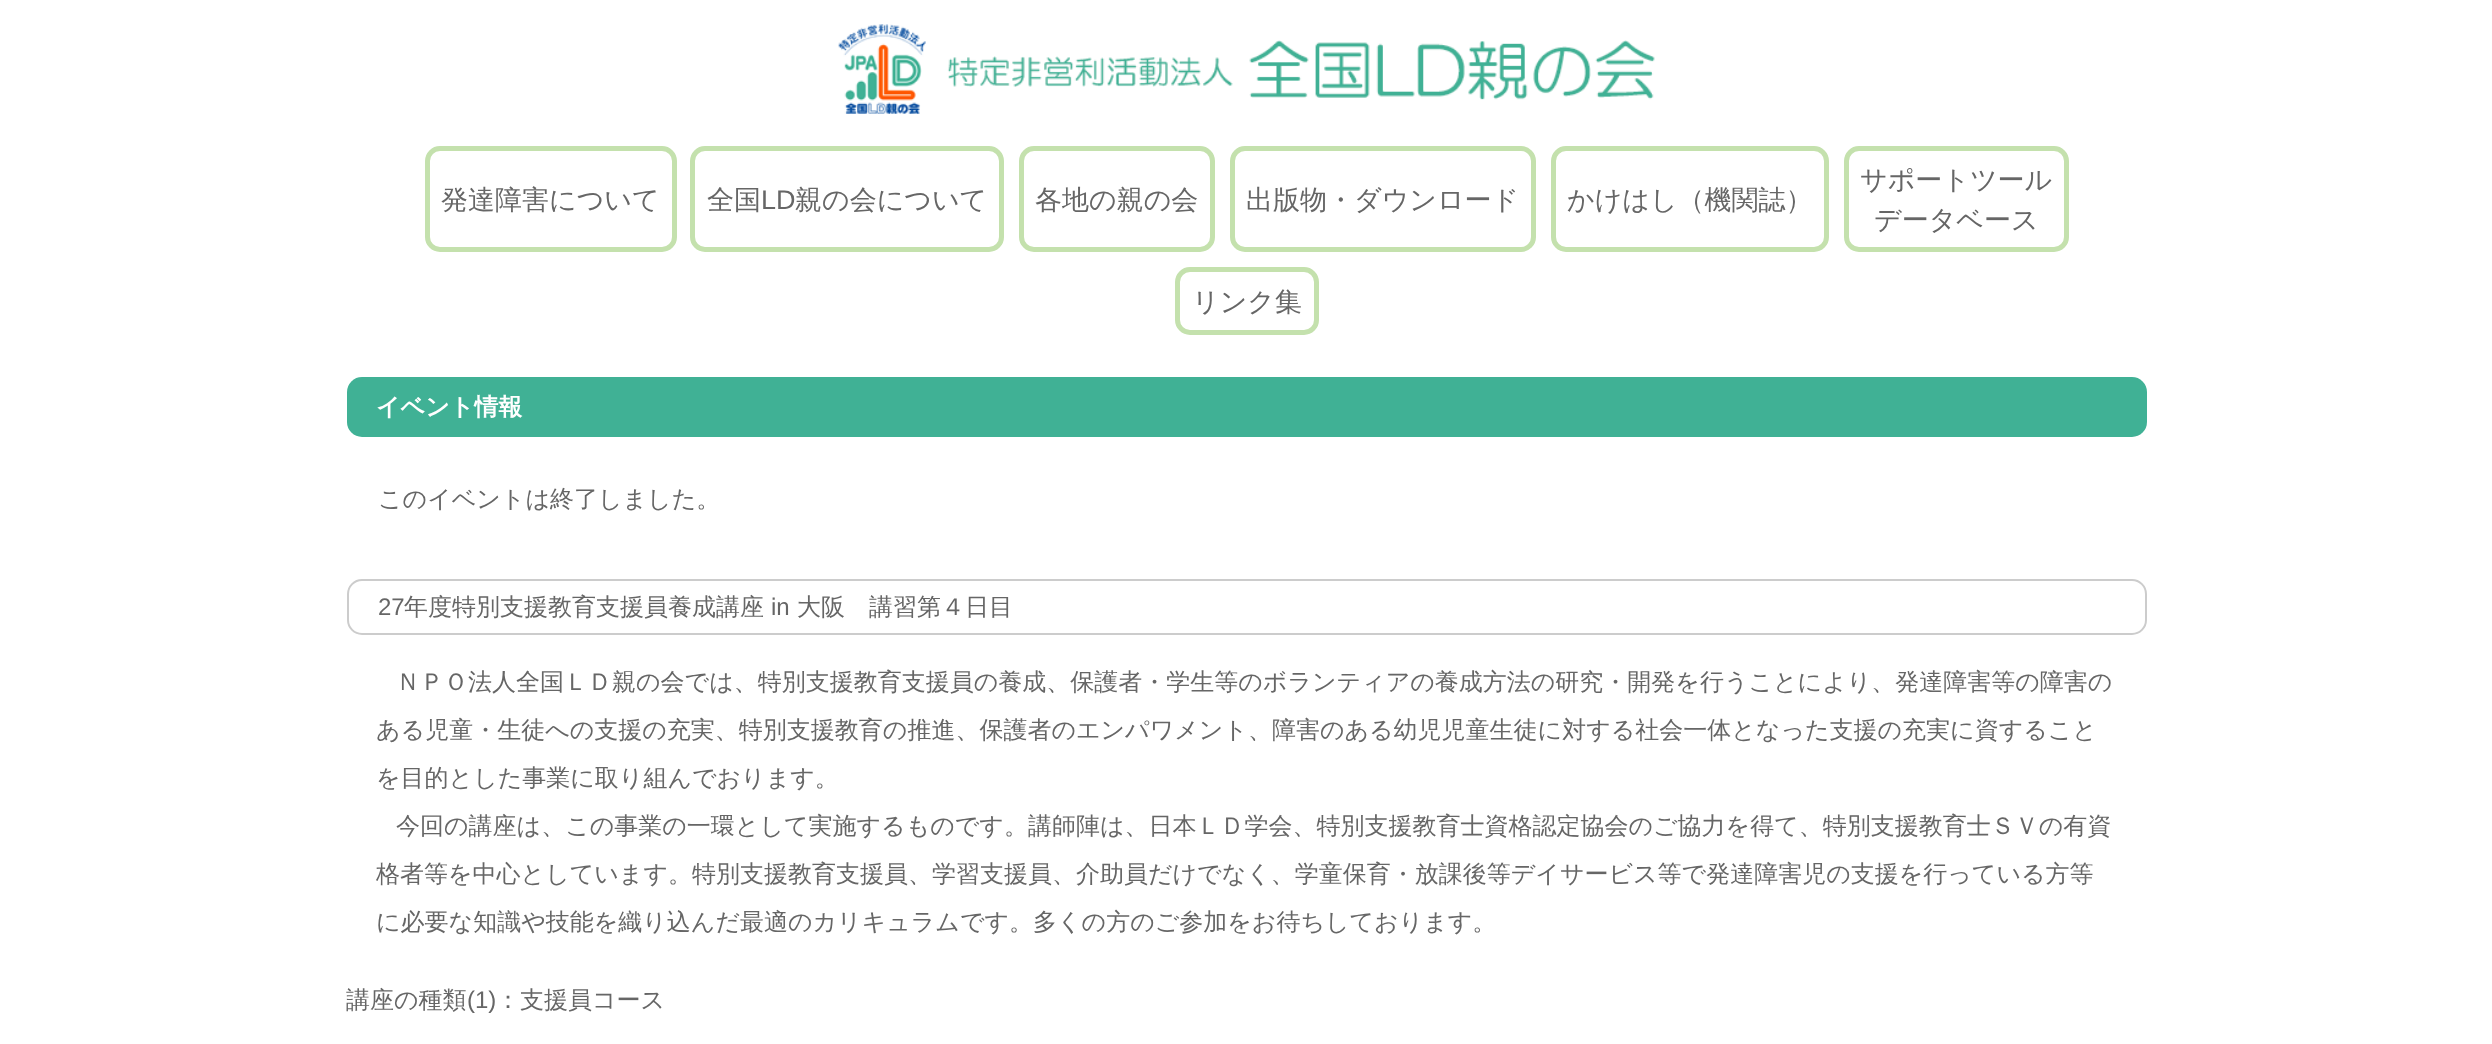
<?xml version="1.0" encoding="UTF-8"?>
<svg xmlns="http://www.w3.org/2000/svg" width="2492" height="1044">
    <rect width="100%" height="100%" fill="#FFFFFF"/>
    <image x="838" y="24" width="817" height="90" href="img_01.png"/>
    <rect x="427.5" y="148.5" width="247" height="101" rx="12.5" fill="none" stroke="#C4E1AD" stroke-width="5"/>
    <text x="441" y="209" font-family="WenQuanYi Zen Hei" font-size="27" font-weight="500" fill="#666666">発達障害について</text>
    <rect x="692.5" y="148.5" width="309" height="101" rx="12.5" fill="none" stroke="#C4E1AD" stroke-width="5"/>
    <text x="707" y="209" font-family="WenQuanYi Zen Hei" font-size="27" font-weight="500" fill="#666666">全国</text>
    <text x="761" y="209" font-family="Liberation Sans" font-size="27" fill="#666666">LD</text>
    <text x="795" y="209" font-family="WenQuanYi Zen Hei" font-size="27" font-weight="500" fill="#666666">親の会について</text>
    <rect x="1021.5" y="148.5" width="191" height="101" rx="12.5" fill="none" stroke="#C4E1AD" stroke-width="5"/>
    <text x="1035" y="209" font-family="WenQuanYi Zen Hei" font-size="27" font-weight="500" fill="#666666">各地の親の会</text>
    <rect x="1232.5" y="148.5" width="301" height="101" rx="12.5" fill="none" stroke="#C4E1AD" stroke-width="5"/>
    <text x="1246" y="209" font-family="WenQuanYi Zen Hei" font-size="27" font-weight="500" fill="#666666">出版物・ダウンロード</text>
    <rect x="1553.5" y="148.5" width="273" height="101" rx="12.5" fill="none" stroke="#C4E1AD" stroke-width="5"/>
    <text x="1567" y="209" font-family="WenQuanYi Zen Hei" font-size="27" font-weight="500" fill="#666666">かけはし（機関誌）</text>
    <rect x="1846.5" y="148.5" width="220" height="101" rx="12.5" fill="none" stroke="#C4E1AD" stroke-width="5"/>
    <text x="1860" y="189" font-family="WenQuanYi Zen Hei" font-size="27" font-weight="500" fill="#666666">サポートツール</text>
    <text x="1874" y="229" font-family="WenQuanYi Zen Hei" font-size="27" font-weight="500" fill="#666666">データベース</text>
    <rect x="1177.5" y="269.5" width="139" height="63" rx="12.5" fill="none" stroke="#C4E1AD" stroke-width="5"/>
    <text x="1192" y="311" font-family="WenQuanYi Zen Hei" font-size="27" font-weight="500" fill="#666666">リンク集</text>
    <rect x="347" y="377" width="1800" height="60" rx="15" fill="#40B195"/>
    <text x="376" y="415" font-family="WenQuanYi Zen Hei" font-size="24" font-weight="700" fill="#FFFFFF">イベント情報</text>
    <text x="378" y="507" font-family="WenQuanYi Zen Hei" font-size="24" font-weight="500" fill="#666666">このイベントは終了しました。</text>
    <rect x="348" y="580" width="1798" height="54" rx="14" fill="none" stroke="#CCCCCC" stroke-width="2"/>
    <text x="378" y="615" font-family="Liberation Sans" font-size="24" fill="#666666">27</text>
    <text x="404" y="615" font-family="WenQuanYi Zen Hei" font-size="24" font-weight="500" fill="#666666">年度特別支援教育支援員養成講座</text>
    <text x="771" y="615" font-family="Liberation Sans" font-size="24" fill="#666666">in</text>
    <text x="797" y="615" font-family="WenQuanYi Zen Hei" font-size="24" font-weight="500" fill="#666666">大阪　講習第４日目</text>
    <text x="396" y="690" font-family="WenQuanYi Zen Hei" font-size="24" font-weight="500" fill="#666666">ＮＰＯ法人全国ＬＤ親の会では、特別支援教育支援員の養成、保護者・学生等のボランティアの養成方法の研究・開発を行うことにより、発達障害等の障害の</text>
    <text x="376" y="738" font-family="WenQuanYi Zen Hei" font-size="24" font-weight="500" fill="#666666">ある児童・生徒への支援の充実、特別支援教育の推進、保護者のエンパワメント、障害のある幼児児童生徒に対する社会一体となった支援の充実に資すること</text>
    <text x="376" y="786" font-family="WenQuanYi Zen Hei" font-size="24" font-weight="500" fill="#666666">を目的とした事業に取り組んでおります。</text>
    <text x="396" y="834" font-family="WenQuanYi Zen Hei" font-size="24" font-weight="500" fill="#666666">今回の講座は、この事業の一環として実施するものです。講師陣は、日本ＬＤ学会、特別支援教育士資格認定協会のご協力を得て、特別支援教育士ＳＶの有資</text>
    <text x="376" y="882" font-family="WenQuanYi Zen Hei" font-size="24" font-weight="500" fill="#666666">格者等を中心としています。特別支援教育支援員、学習支援員、介助員だけでなく、学童保育・放課後等デイサービス等で発達障害児の支援を行っている方等</text>
    <text x="376" y="930" font-family="WenQuanYi Zen Hei" font-size="24" font-weight="500" fill="#666666">に必要な知識や技能を織り込んだ最適のカリキュラムです。多くの方のご参加をお待ちしております。</text>
    <text x="346" y="1008" font-family="WenQuanYi Zen Hei" font-size="24" font-weight="500" fill="#666666">講座の種類</text>
    <text x="467" y="1008" font-family="Liberation Sans" font-size="24" fill="#666666">(1)</text>
    <text x="496" y="1008" font-family="WenQuanYi Zen Hei" font-size="24" font-weight="500" fill="#666666">：支援員コース</text>
</svg>
